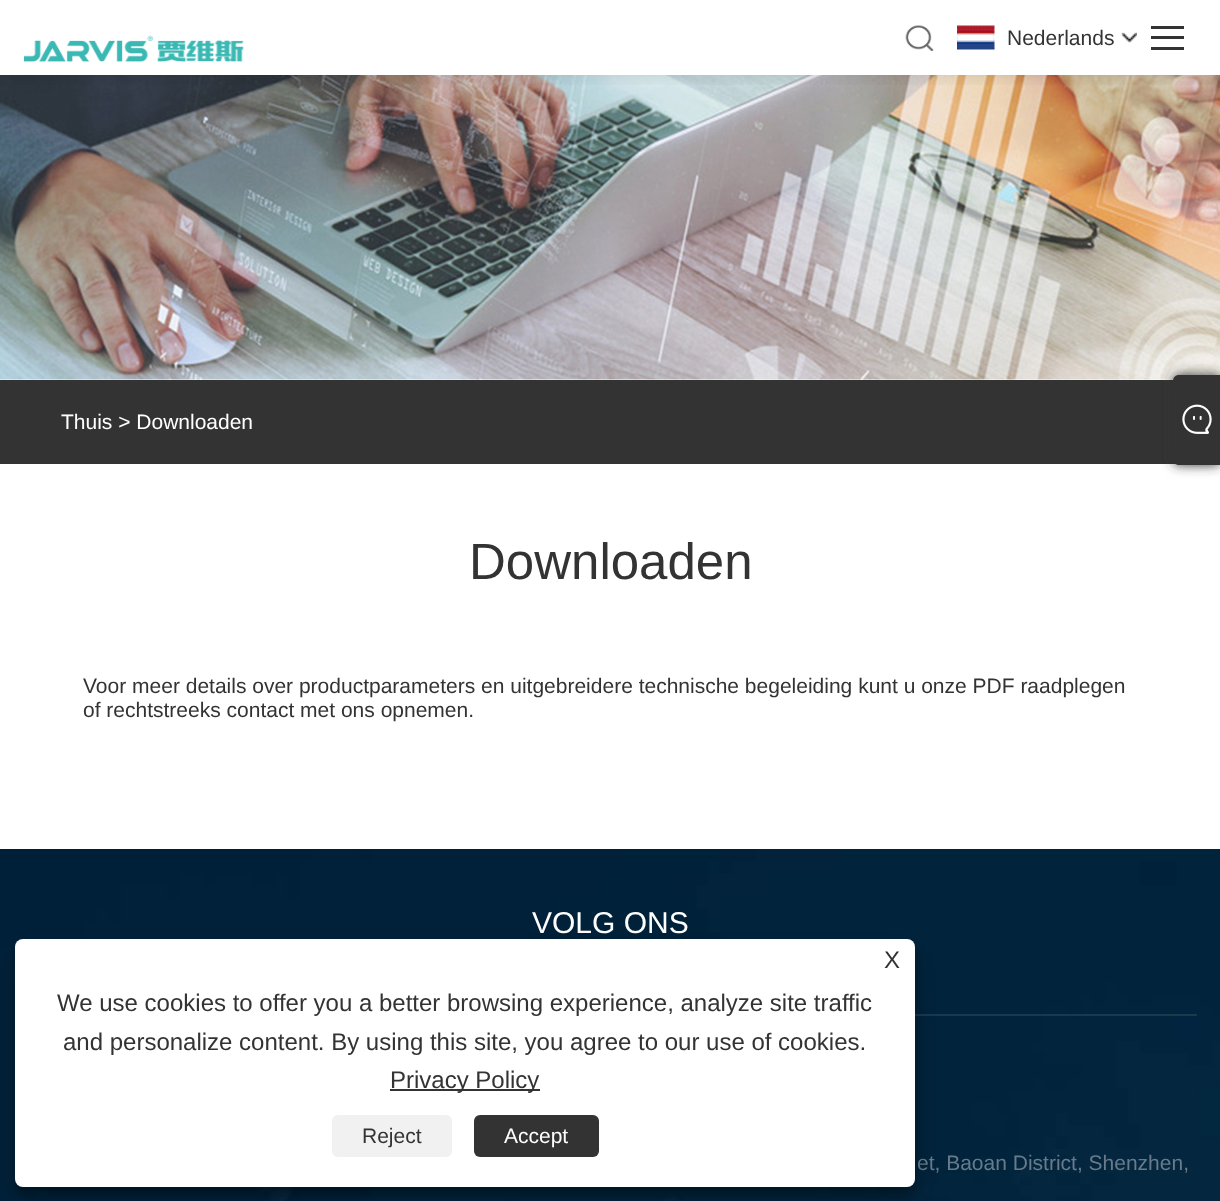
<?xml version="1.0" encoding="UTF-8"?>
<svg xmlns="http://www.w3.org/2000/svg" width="1220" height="1201">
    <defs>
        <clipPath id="clip1"><rect x="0" y="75" width="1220" height="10"/></clipPath>
        <filter id="blur1" x="-50%" y="-200%" width="200%" height="500%"><feGaussianBlur stdDeviation="9"/></filter>
        <filter id="blur2" x="-50%" y="-200%" width="200%" height="500%"><feGaussianBlur stdDeviation="6"/></filter>
        <filter id="blur3" x="-50%" y="-200%" width="200%" height="500%"><feGaussianBlur stdDeviation="4.5"/></filter>
        <filter id="blur4" x="-50%" y="-200%" width="200%" height="500%"><feGaussianBlur stdDeviation="15"/></filter>
    </defs>
    <rect width="100%" height="100%" fill="#FFFFFF"/>
    <image x="0" y="75" width="1220" height="305" href="img_05.png"/>
    <g clip-path="url(#clip1)">
        <rect x="0" y="2" width="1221" height="75" fill="#000000" fill-opacity="0.1" filter="url(#blur1)"/>
    </g>
    <image x="24" y="35" width="220" height="27" href="img_01.png"/>
    <image x="905" y="25" width="29" height="26" href="img_02.png"/>
    <image x="1121" y="32" width="16" height="11" href="img_03.png"/>
    <image x="957" y="25" width="38" height="25" href="img_04.png"/>
    <text x="1007" y="45" font-family="Liberation Sans" font-size="21" fill="#333333">Nederlands</text>
    <rect x="1151" y="26" width="33" height="3" fill="#333333"/>
    <rect x="1151" y="36" width="33" height="3" fill="#333333"/>
    <rect x="1151" y="47" width="33" height="3" fill="#333333"/>
    <rect x="0" y="380" width="1176" height="84" fill="#333333"/>
    <text x="61" y="429" font-family="Liberation Sans" font-size="21" fill="#FFFFFF">Thuis &gt; Downloaden</text>
    <text x="469" y="579" font-family="Liberation Sans" font-size="51" fill="#333333">Downloaden</text>
    <text font-family="Liberation Sans" font-size="21" fill="#333333">
        <tspan x="83" y="693">Voor meer details over productparameters en uitgebreidere technische begeleiding kunt u onze PDF raadplegen</tspan>
        <tspan x="83" y="717">of rechtstreeks contact met ons opnemen.</tspan>
    </text>
    <image x="0" y="849" width="1220" height="352" href="img_06.png"/>
    <rect x="915" y="1014" width="282" height="2" fill="#FFFFFF" fill-opacity="0.1"/>
    <text x="532" y="933" font-family="Liberation Sans" font-size="30" fill="#FFFFFF">VOLG ONS</text>
    <text x="917" y="1170" font-family="Liberation Sans" font-size="21" fill="#677B8A">et, Baoan District, Shenzhen,</text>
    <rect x="1173" y="375" width="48" height="90" rx="6" fill="#333333" filter="url(#blur2)"/>
    <path d="M 1179 375 H 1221 V 465 H 1179 C 1175.5 465 1173 462.5 1173 459 V 381 C 1173 377.5 1175.5 375 1179 375 Z" fill="#333333"/>
    <image x="1182" y="404" width="30" height="30" href="img_07.png"/>
    <rect x="15" y="948" width="900" height="248" rx="8" fill="#000000" fill-opacity="0.23" filter="url(#blur3)"/>
    <rect x="15" y="954" width="900" height="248" rx="8" fill="#000000" fill-opacity="0.19" filter="url(#blur4)"/>
    <rect x="15" y="939" width="900" height="248" rx="8" fill="#FFFFFF"/>
    <text x="884" y="968" font-family="Liberation Sans" font-size="24" fill="#333333">X</text>
    <text x="57" y="1011" font-family="Liberation Sans" font-size="24" fill="#333333">We use cookies to offer you a better browsing experience, analyze site traffic</text>
    <text x="63" y="1050" font-family="Liberation Sans" font-size="24" fill="#333333">and personalize content. By using this site, you agree to our use of cookies.</text>
    <rect x="390" y="1089" width="150" height="2" fill="#333333"/>
    <text x="390" y="1088" font-family="Liberation Sans" font-size="24" fill="#333333">Privacy Policy</text>
    <rect x="332" y="1115" width="120" height="42" rx="6" fill="#F1F1F1"/>
    <text x="362" y="1143" font-family="Liberation Sans" font-size="21" fill="#333333">Reject</text>
    <rect x="474" y="1115" width="125" height="42" rx="6" fill="#333333"/>
    <text x="504" y="1143" font-family="Liberation Sans" font-size="21" fill="#FFFFFF">Accept</text>
</svg>
